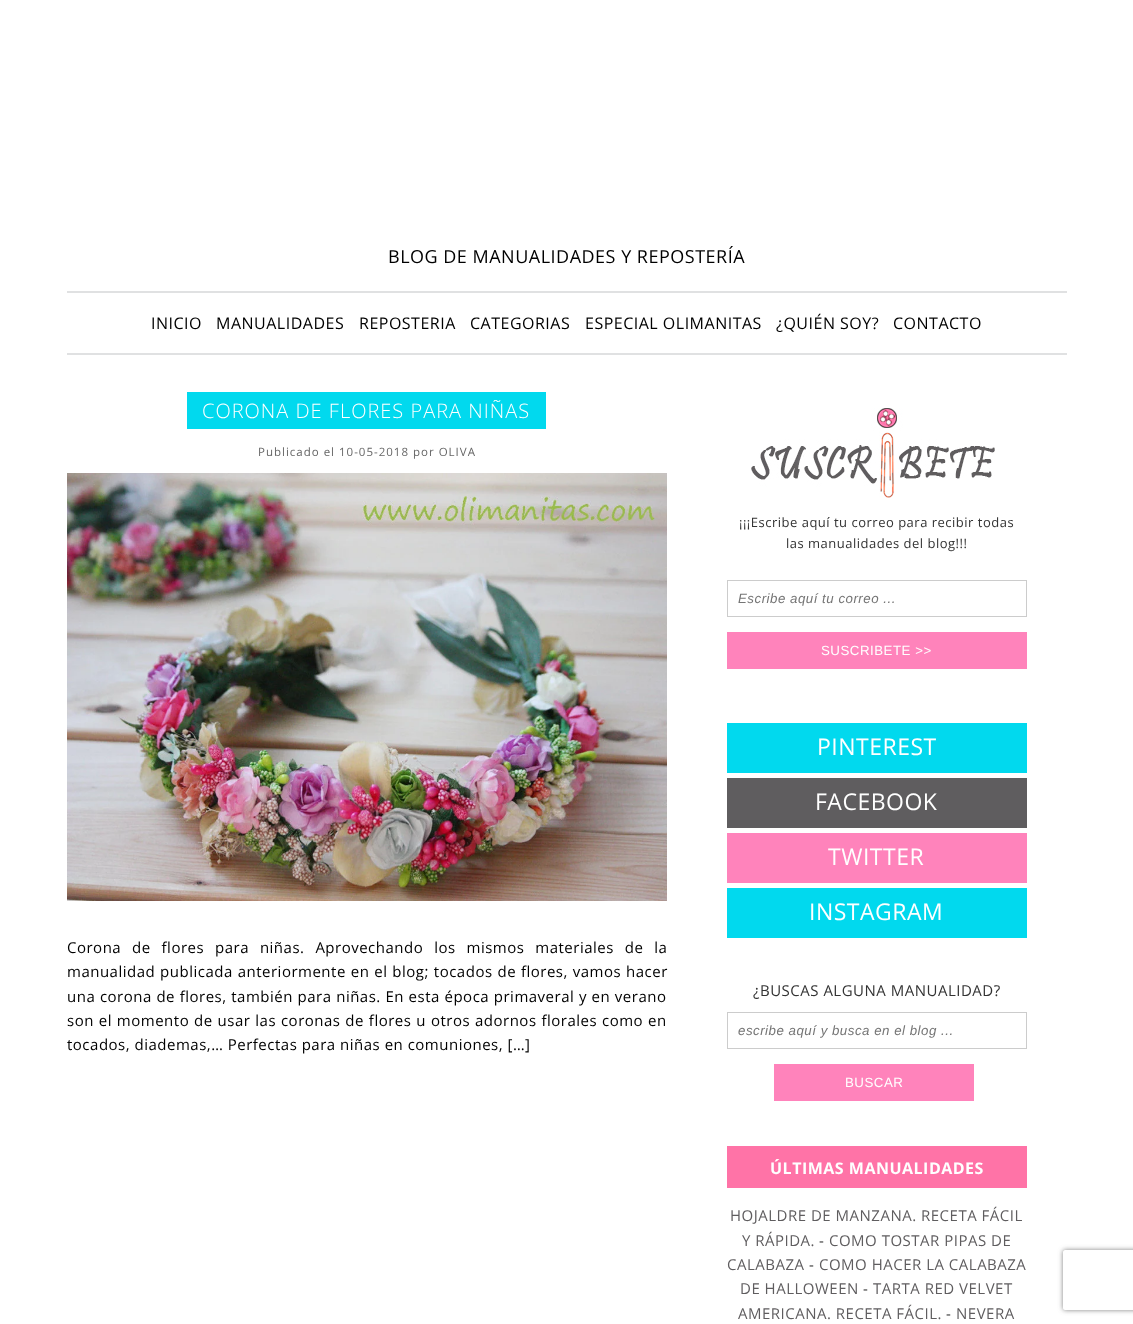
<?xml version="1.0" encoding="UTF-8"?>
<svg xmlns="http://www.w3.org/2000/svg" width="1133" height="1324">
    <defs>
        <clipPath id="clip1"><path d="M 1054 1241 H 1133 V 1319 H 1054 Z M 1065 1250 H 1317 C 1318 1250 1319 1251 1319 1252 V 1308 C 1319 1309 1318 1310 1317 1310 H 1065 C 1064 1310 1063 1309 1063 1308 V 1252 C 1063 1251 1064 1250 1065 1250 Z" clip-rule="evenodd"/></clipPath>
        <filter id="blur1" x="-50%" y="-200%" width="200%" height="500%"><feGaussianBlur stdDeviation="2.5"/></filter>
    </defs>
    <rect width="100%" height="100%" fill="#FFFFFF"/>
    <text x="388" y="263" font-family="Open Sans" font-size="18" letter-spacing="0.5" fill="#000000">BLOG DE MANUALIDADES Y REPOSTERÍA</text>
    <rect x="67" y="291" width="1000" height="2" fill="#E0E1E2"/>
    <rect x="67" y="353" width="1000" height="2" fill="#E0E1E2"/>
    <text x="151" y="329" font-family="Open Sans" font-size="16" letter-spacing="0.5" fill="#000000">INICIO</text>
    <text x="216" y="329" font-family="Open Sans" font-size="16" letter-spacing="0.5" fill="#000000">MANUALIDADES</text>
    <text x="359" y="329" font-family="Open Sans" font-size="16" letter-spacing="0.5" fill="#000000">REPOSTERIA</text>
    <text x="470" y="329" font-family="Open Sans" font-size="16" letter-spacing="0.5" fill="#000000">CATEGORIAS</text>
    <text x="585" y="329" font-family="Open Sans" font-size="16" letter-spacing="0.5" fill="#000000">ESPECIAL OLIMANITAS</text>
    <text x="776" y="329" font-family="Open Sans" font-size="16" letter-spacing="0.5" fill="#000000">¿QUIÉN SOY?</text>
    <text x="893" y="329" font-family="Open Sans" font-size="16" letter-spacing="0.5" fill="#000000">CONTACTO</text>
    <rect x="187" y="392" width="359" height="37" fill="#01D9EE"/>
    <text x="202" y="418" font-family="Open Sans" font-size="20" font-weight="300" letter-spacing="1" fill="#FFFFFF">CORONA DE FLORES PARA NIÑAS</text>
    <text x="258" y="456" font-family="Open Sans" font-size="11.5" letter-spacing="1" fill="#666666">Publicado el 10-05-2018 por OLIVA</text>
    <image x="67" y="473" width="600" height="428" href="img_01.png"/>
    <text font-family="Open Sans" font-size="15" letter-spacing="0.5" fill="#000000">
        <tspan x="67" y="953" word-spacing="6.5">Corona de flores para niñas. Aprovechando los mismos materiales de la</tspan>
        <tspan x="67" y="977" word-spacing="0.5">manualidad publicada anteriormente en el blog; tocados de flores, vamos hacer</tspan>
        <tspan x="67" y="1002" word-spacing="0.25">una corona de flores, también para niñas. En esta época primaveral y en verano</tspan>
        <tspan x="67" y="1026" word-spacing="0.5">son el momento de usar las coronas de flores u otros adornos florales como en</tspan>
        <tspan x="67" y="1050">tocados, diademas,… Perfectas para niñas en comuniones, […]</tspan>
    </text>
    <image x="751" y="408" width="244" height="90" href="img_02.png"/>
    <text x="739" y="527" font-family="Open Sans" font-size="13" letter-spacing="0.5" fill="#333333">¡¡¡Escribe aquí tu correo para recibir todas</text>
    <text x="786" y="548" font-family="Open Sans" font-size="13" letter-spacing="0.5" fill="#333333">las manualidades del blog!!!</text>
    <rect x="727.5" y="580.5" width="299" height="36" fill="none" stroke="#CCCCCC"/>
    <text x="738" y="603" font-family="Liberation Sans" font-size="13.3" font-style="italic" letter-spacing="0.5" fill="#757575">Escribe aquí tu correo ...</text>
    <rect x="727" y="632" width="300" height="37" fill="#FF83BB"/>
    <text x="821" y="655" font-family="Liberation Sans" font-size="13.3" letter-spacing="0.5" fill="#FFFFFF">SUSCRIBETE &gt;&gt;</text>
    <rect x="727" y="723" width="300" height="50" fill="#01D9EE"/>
    <text x="817" y="755" font-family="Open Sans" font-size="23" letter-spacing="0.5" fill="#FFFFFF">PINTEREST</text>
    <rect x="727" y="778" width="300" height="50" fill="#5F5D5F"/>
    <text x="815" y="810" font-family="Open Sans" font-size="23" letter-spacing="0.5" fill="#FFFFFF">FACEBOOK</text>
    <rect x="727" y="833" width="300" height="50" fill="#FF83BB"/>
    <text x="828" y="865" font-family="Open Sans" font-size="23" letter-spacing="0.5" fill="#FFFFFF">TWITTER</text>
    <rect x="727" y="888" width="300" height="50" fill="#01D9EE"/>
    <text x="809" y="920" font-family="Open Sans" font-size="23" letter-spacing="0.5" fill="#FFFFFF">INSTAGRAM</text>
    <text x="753" y="996" font-family="Open Sans" font-size="15" letter-spacing="0.5" fill="#333333">¿BUSCAS ALGUNA MANUALIDAD?</text>
    <rect x="727.5" y="1012.5" width="299" height="36" fill="none" stroke="#CCCCCC"/>
    <text x="738" y="1035" font-family="Liberation Sans" font-size="13.3" font-style="italic" letter-spacing="0.5" fill="#757575">escribe aquí y busca en el blog ...</text>
    <rect x="774" y="1064" width="200" height="37" fill="#FF83BB"/>
    <text x="845" y="1087" font-family="Liberation Sans" font-size="13.3" letter-spacing="0.5" fill="#FFFFFF">BUSCAR</text>
    <rect x="727" y="1146" width="300" height="42" fill="#FF73A7"/>
    <text x="770" y="1174" font-family="Open Sans" font-size="16" font-weight="700" letter-spacing="0.5" fill="#FFFFFF">ÚLTIMAS MANUALIDADES</text>
    <text x="730" y="1221" font-family="Open Sans" font-size="15" letter-spacing="0.5" fill="#5F5D5F">HOJALDRE DE MANZANA. RECETA FÁCIL</text>
    <text x="742" y="1246" font-family="Open Sans" font-size="15" letter-spacing="0.5" fill="#5F5D5F">Y RÁPIDA.</text>
    <text x="819" y="1246" font-family="Open Sans" font-size="15" letter-spacing="0.5" fill="#333333">-</text>
    <text x="829" y="1246" font-family="Open Sans" font-size="15" letter-spacing="0.5" fill="#5F5D5F">COMO TOSTAR PIPAS DE</text>
    <text x="727" y="1270" font-family="Open Sans" font-size="15" letter-spacing="0.5" fill="#5F5D5F">CALABAZA</text>
    <text x="809" y="1270" font-family="Open Sans" font-size="15" letter-spacing="0.5" fill="#333333">-</text>
    <text x="819" y="1270" font-family="Open Sans" font-size="15" letter-spacing="0.5" fill="#5F5D5F">COMO HACER LA CALABAZA</text>
    <text x="740" y="1294" font-family="Open Sans" font-size="15" letter-spacing="0.5" fill="#5F5D5F">DE HALLOWEEN</text>
    <text x="863" y="1294" font-family="Open Sans" font-size="15" letter-spacing="0.5" fill="#333333">-</text>
    <text x="873" y="1294" font-family="Open Sans" font-size="15" letter-spacing="0.5" fill="#5F5D5F">TARTA RED VELVET</text>
    <text x="738" y="1319" font-family="Open Sans" font-size="15" letter-spacing="0.5" fill="#5F5D5F">AMERICANA. RECETA FÁCIL.</text>
    <text x="946" y="1319" font-family="Open Sans" font-size="15" letter-spacing="0.5" fill="#333333">-</text>
    <text x="956" y="1319" font-family="Open Sans" font-size="15" letter-spacing="0.5" fill="#5F5D5F">NEVERA</text>
    <g clip-path="url(#clip1)">
        <rect x="1063" y="1250" width="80" height="60" rx="2" fill="#808080" filter="url(#blur1)"/>
    </g>
</svg>
